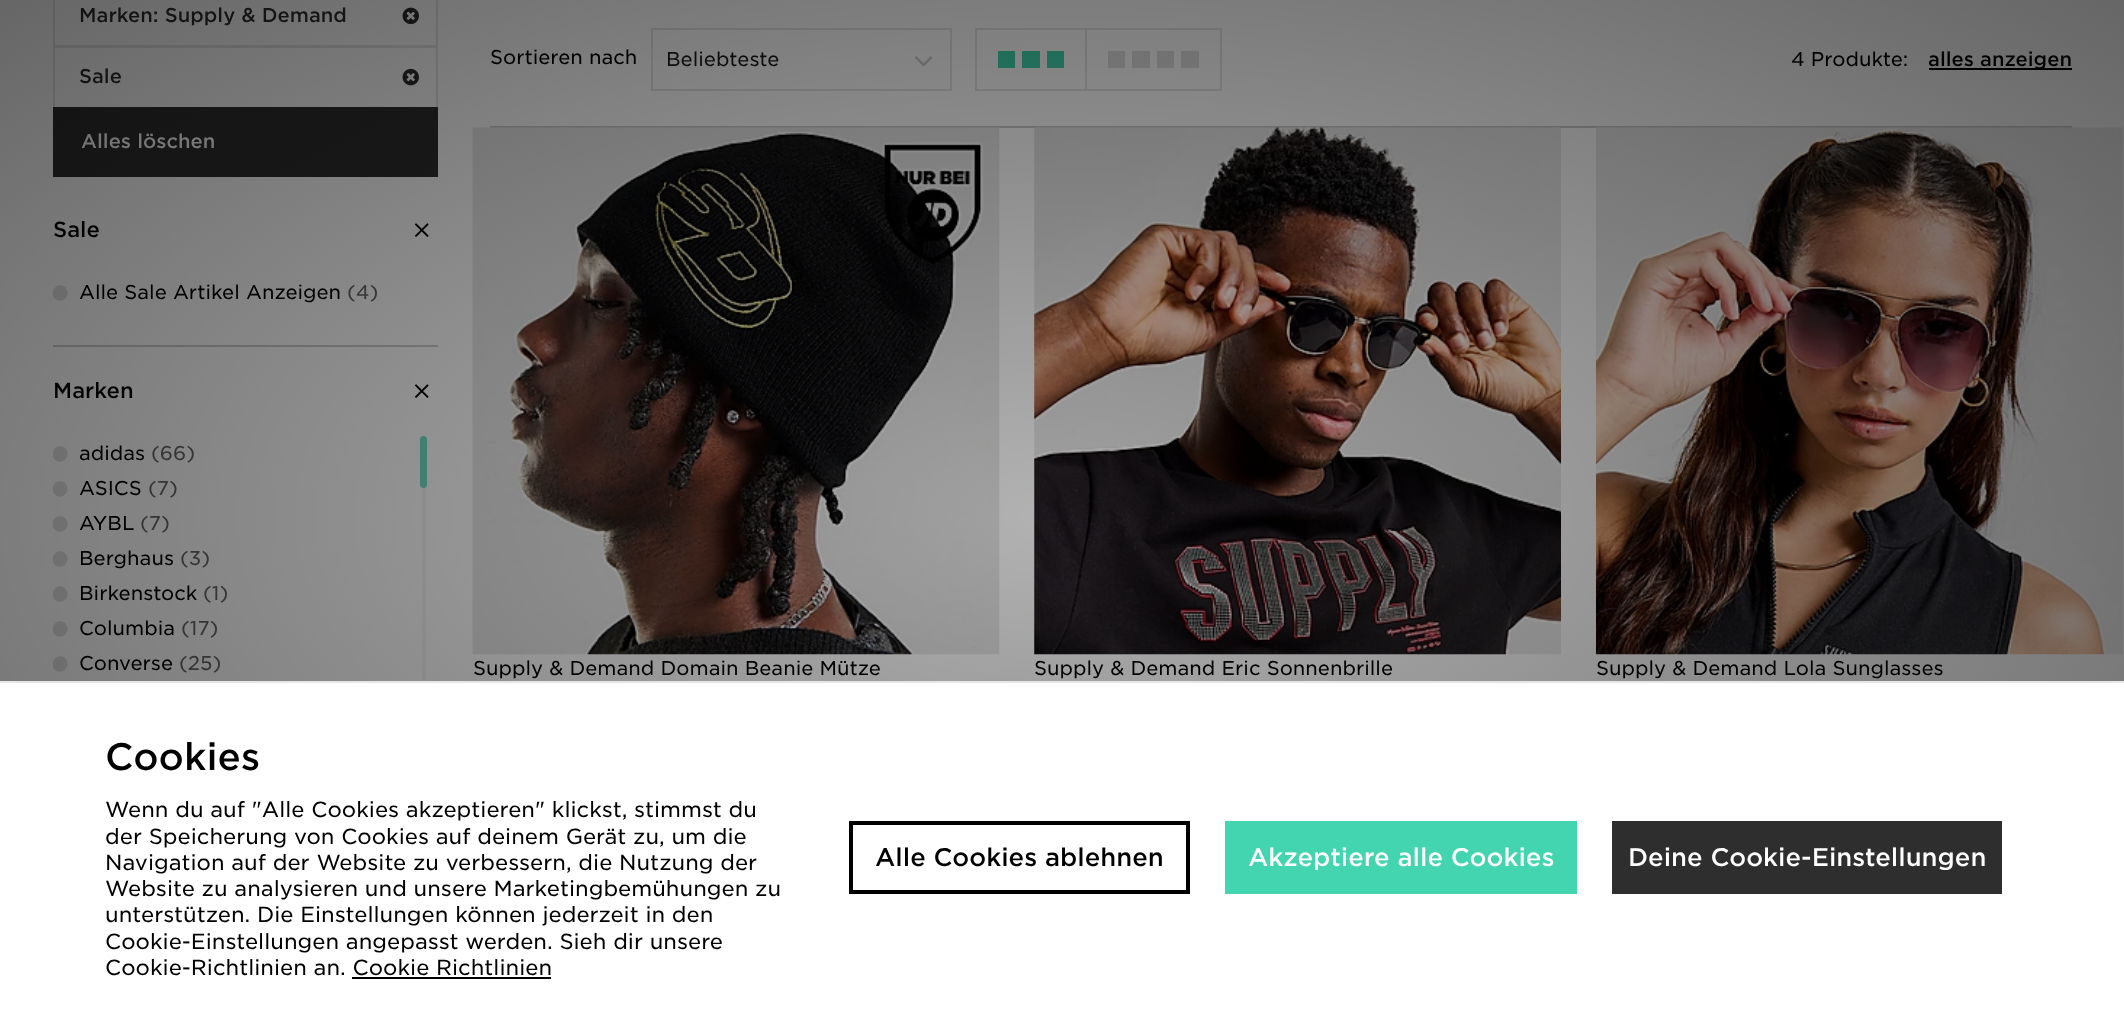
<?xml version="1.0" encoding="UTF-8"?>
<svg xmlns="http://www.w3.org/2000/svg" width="2124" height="1032">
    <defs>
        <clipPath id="clip1"><rect x="53" y="275" width="350" height="35"/></clipPath>
        <clipPath id="clip2"><rect x="53" y="436" width="350" height="245"/></clipPath>
        <radialGradient id="g1" gradientUnits="userSpaceOnUse" cx="0" cy="0" r="1" gradientTransform="matrix(1502 0 0 730 1062 516)"><stop offset="0" stop-color="#000000" stop-opacity="0.3"/><stop offset="1" stop-color="#000000" stop-opacity="0.6"/></radialGradient>
    </defs>
    <rect width="100%" height="100%" fill="#FFFFFF"/>
    <rect x="54" y="-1" width="383" height="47" fill="none" stroke="#E5E5E5" stroke-width="2"/>
    <text x="79" y="22" font-family="'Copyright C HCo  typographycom'" font-size="19.25" font-weight="300" fill="#2E2E2E">Marken: Supply &amp; Demand</text>
    <image x="402" y="7" width="17" height="18" href="img_01.png"/>
    <rect x="54" y="47" width="383" height="61" fill="none" stroke="#E5E5E5" stroke-width="2"/>
    <text x="79" y="83" font-family="'Copyright C HCo  typographycom'" font-size="19.25" font-weight="300" fill="#2E2E2E">Sale</text>
    <image x="402" y="68" width="17" height="18" href="img_02.png"/>
    <rect x="53" y="107" width="385" height="70" fill="#2E2E2E"/>
    <text x="81" y="148" font-family="'Copyright C HCo  typographycom'" font-size="19.25" font-weight="300" fill="#FFFFFF">Alles löschen</text>
    <rect x="53" y="345" width="385" height="2" fill="#CCCCCC"/>
    <text x="53" y="237" font-family="'Copyright C HCo  typographycom'" font-size="21" font-weight="300" fill="#000000">Sale</text>
    <image x="415" y="223" width="7" height="14" href="img_03.png"/>
    <image x="420" y="223" width="9" height="14" href="img_04.png"/>
    <g clip-path="url(#clip1)">
        <path d="M 66.5 289 C 71.5 297.5 58.5 305.5 53.5 297 C 48.5 288.5 61.5 280.5 66.5 289 Z" fill="#DFDFDF"/>
    </g>
    <text x="79" y="299" font-family="'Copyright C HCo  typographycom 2'" font-size="19.25" font-weight="300" fill="#000000">Alle Sale Artikel Anzeigen</text>
    <text x="347" y="299" font-family="'Copyright C HCo  typographycom 2'" font-size="19.25" font-weight="300" fill="#666666">(4)</text>
    <text x="53" y="398" font-family="'Copyright C HCo  typographycom'" font-size="21" font-weight="300" fill="#000000">Marken</text>
    <image x="415" y="384" width="7" height="14" href="img_03.png"/>
    <image x="420" y="384" width="9" height="14" href="img_04.png"/>
    <g clip-path="url(#clip2)">
        <path d="M 66.5 450 C 71.5 458.5 58.5 466.5 53.5 458 C 48.5 449.5 61.5 441.5 66.5 450 Z" fill="#DFDFDF"/>
    </g>
    <text x="79" y="460" font-family="'Copyright C HCo  typographycom 2'" font-size="19.25" font-weight="300" fill="#000000">adidas</text>
    <text x="151" y="460" font-family="'Copyright C HCo  typographycom 2'" font-size="19.25" font-weight="300" fill="#666666">(66)</text>
    <g clip-path="url(#clip2)">
        <path d="M 66.5 485 C 71.5 493.5 58.5 501.5 53.5 493 C 48.5 484.5 61.5 476.5 66.5 485 Z" fill="#DFDFDF"/>
    </g>
    <text x="79" y="495" font-family="'Copyright C HCo  typographycom 2'" font-size="19.25" font-weight="300" fill="#000000">ASICS</text>
    <text x="148" y="495" font-family="'Copyright C HCo  typographycom 2'" font-size="19.25" font-weight="300" fill="#666666">(7)</text>
    <g clip-path="url(#clip2)">
        <path d="M 66.5 520 C 71.5 528.5 58.5 536.5 53.5 528 C 48.5 519.5 61.5 511.5 66.5 520 Z" fill="#DFDFDF"/>
    </g>
    <text x="79" y="530" font-family="'Copyright C HCo  typographycom 2'" font-size="19.25" font-weight="300" fill="#000000">AYBL</text>
    <text x="140" y="530" font-family="'Copyright C HCo  typographycom 2'" font-size="19.25" font-weight="300" fill="#666666">(7)</text>
    <g clip-path="url(#clip2)">
        <path d="M 66.5 555 C 71.5 563.5 58.5 571.5 53.5 563 C 48.5 554.5 61.5 546.5 66.5 555 Z" fill="#DFDFDF"/>
    </g>
    <text x="79" y="565" font-family="'Copyright C HCo  typographycom 2'" font-size="19.25" font-weight="300" fill="#000000">Berghaus</text>
    <text x="180" y="565" font-family="'Copyright C HCo  typographycom 2'" font-size="19.25" font-weight="300" fill="#666666">(3)</text>
    <g clip-path="url(#clip2)">
        <path d="M 66.5 590 C 71.5 598.5 58.5 606.5 53.5 598 C 48.5 589.5 61.5 581.5 66.5 590 Z" fill="#DFDFDF"/>
    </g>
    <text x="79" y="600" font-family="'Copyright C HCo  typographycom 2'" font-size="19.25" font-weight="300" fill="#000000">Birkenstock</text>
    <text x="203" y="600" font-family="'Copyright C HCo  typographycom 2'" font-size="19.25" font-weight="300" fill="#666666">(1)</text>
    <g clip-path="url(#clip2)">
        <path d="M 66.5 625 C 71.5 633.5 58.5 641.5 53.5 633 C 48.5 624.5 61.5 616.5 66.5 625 Z" fill="#DFDFDF"/>
    </g>
    <text x="79" y="635" font-family="'Copyright C HCo  typographycom 2'" font-size="19.25" font-weight="300" fill="#000000">Columbia</text>
    <text x="181" y="635" font-family="'Copyright C HCo  typographycom 2'" font-size="19.25" font-weight="300" fill="#666666">(17)</text>
    <g clip-path="url(#clip2)">
        <path d="M 66.5 660 C 71.5 668.5 58.5 676.5 53.5 668 C 48.5 659.5 61.5 651.5 66.5 660 Z" fill="#DFDFDF"/>
    </g>
    <text x="79" y="670" font-family="'Copyright C HCo  typographycom 2'" font-size="19.25" font-weight="300" fill="#000000">Converse</text>
    <text x="179" y="670" font-family="'Copyright C HCo  typographycom 2'" font-size="19.25" font-weight="300" fill="#666666">(25)</text>
    <rect x="422" y="436" width="4" height="245" rx="2" fill="#F5F5F5"/>
    <rect x="420" y="436" width="7" height="52" rx="3.5" fill="#72E0C4"/>
    <rect x="490" y="126" width="1582" height="2" fill="#CCCCCC"/>
    <text x="490" y="64" font-family="'Copyright C HCo  typographycom 2'" font-size="19.25" font-weight="300" fill="#000000">Sortieren nach</text>
    <rect x="652" y="29" width="299" height="61" fill="none" stroke="#E5E5E5" stroke-width="2"/>
    <text x="666" y="66" font-family="'Copyright C HCo  typographycom 2'" font-size="19.25" font-weight="300" fill="#1A1A1A">Beliebteste</text>
    <image x="915" y="56" width="18" height="11" href="img_05.png"/>
    <rect x="976" y="29" width="110" height="61" fill="none" stroke="#E5E5E5" stroke-width="2"/>
    <rect x="998" y="51" width="17" height="17" fill="#43D5B0"/>
    <rect x="1022" y="51" width="18" height="17" fill="#43D5B0"/>
    <rect x="1047" y="51" width="17" height="17" fill="#43D5B0"/>
    <rect x="1086" y="29" width="135" height="61" fill="none" stroke="#E5E5E5" stroke-width="2"/>
    <rect x="1108" y="51" width="17" height="17" fill="#DFDFDF"/>
    <rect x="1132" y="51" width="18" height="17" fill="#DFDFDF"/>
    <rect x="1157" y="51" width="17" height="17" fill="#DFDFDF"/>
    <rect x="1181" y="51" width="18" height="17" fill="#DFDFDF"/>
    <text x="1791" y="66" font-family="'Copyright C HCo  typographycom 2'" font-size="19.25" font-weight="300" fill="#000000">4 Produkte:</text>
    <rect x="1929" y="68" width="143" height="2" fill="#000000"/>
    <text x="1928" y="66" font-family="'Copyright C HCo  typographycom'" font-size="19.25" font-weight="300" fill="#000000">alles anzeigen</text>
    <image x="472" y="127" width="528" height="528" href="img_06.png"/>
    <text x="473" y="675" font-family="'Copyright C HCo  typographycom 2'" font-size="19.25" font-weight="300" fill="#000000">Supply &amp; Demand Domain Beanie Mütze</text>
    <image x="1034" y="127" width="527" height="528" href="img_07.png"/>
    <text x="1034" y="675" font-family="'Copyright C HCo  typographycom 2'" font-size="19.25" font-weight="300" fill="#000000">Supply &amp; Demand Eric Sonnenbrille</text>
    <image x="1596" y="127" width="527" height="528" href="img_08.png"/>
    <text x="1596" y="675" font-family="'Copyright C HCo  typographycom 2'" font-size="19.25" font-weight="300" fill="#000000">Supply &amp; Demand Lola Sunglasses</text>
    <rect x="0" y="0" width="2124" height="681" fill="url(#g1)"/>
    <rect x="0" y="681" width="2124" height="2" fill="#E5E5E5"/>
    <text x="105" y="770" font-family="'Copyright C HCo  typographycom'" font-size="36.75" font-weight="300" fill="#000000">Cookies</text>
    <text font-family="'Copyright C HCo  typographycom 2'" font-size="21" font-weight="300" fill="#000000">
        <tspan x="105" y="817">Wenn du auf "Alle Cookies akzeptieren" klickst, stimmst du</tspan>
        <tspan x="105" y="844">der Speicherung von Cookies auf deinem Gerät zu, um die</tspan>
        <tspan x="105" y="870">Navigation auf der Website zu verbessern, die Nutzung der</tspan>
        <tspan x="105" y="896">Website zu analysieren und unsere Marketingbemühungen zu</tspan>
        <tspan x="105" y="922">unterstützen. Die Einstellungen können jederzeit in den</tspan>
        <tspan x="105" y="949">Cookie-Einstellungen angepasst werden. Sieh dir unsere</tspan>
        <tspan x="105" y="975">Cookie-Richtlinien an. Cookie Richtlinien</tspan>
    </text>
    <rect x="352" y="977" width="199" height="2" fill="#000000"/>
    <rect x="851" y="823" width="337" height="69" fill="none" stroke="#000000" stroke-width="4"/>
    <text x="875" y="866" font-family="'Copyright C HCo  typographycom'" font-size="24.5" font-weight="300" fill="#000000">Alle Cookies ablehnen</text>
    <rect x="1225" y="821" width="352" height="73" fill="#43D5B0"/>
    <text x="1248" y="866" font-family="'Copyright C HCo  typographycom'" font-size="24.5" font-weight="300" fill="#FFFFFF">Akzeptiere alle Cookies</text>
    <rect x="1612" y="821" width="390" height="73" fill="#2E2E2E"/>
    <text x="1628" y="866" font-family="'Copyright C HCo  typographycom'" font-size="24.5" font-weight="300" fill="#FFFFFF">Deine Cookie-Einstellungen</text>
</svg>
